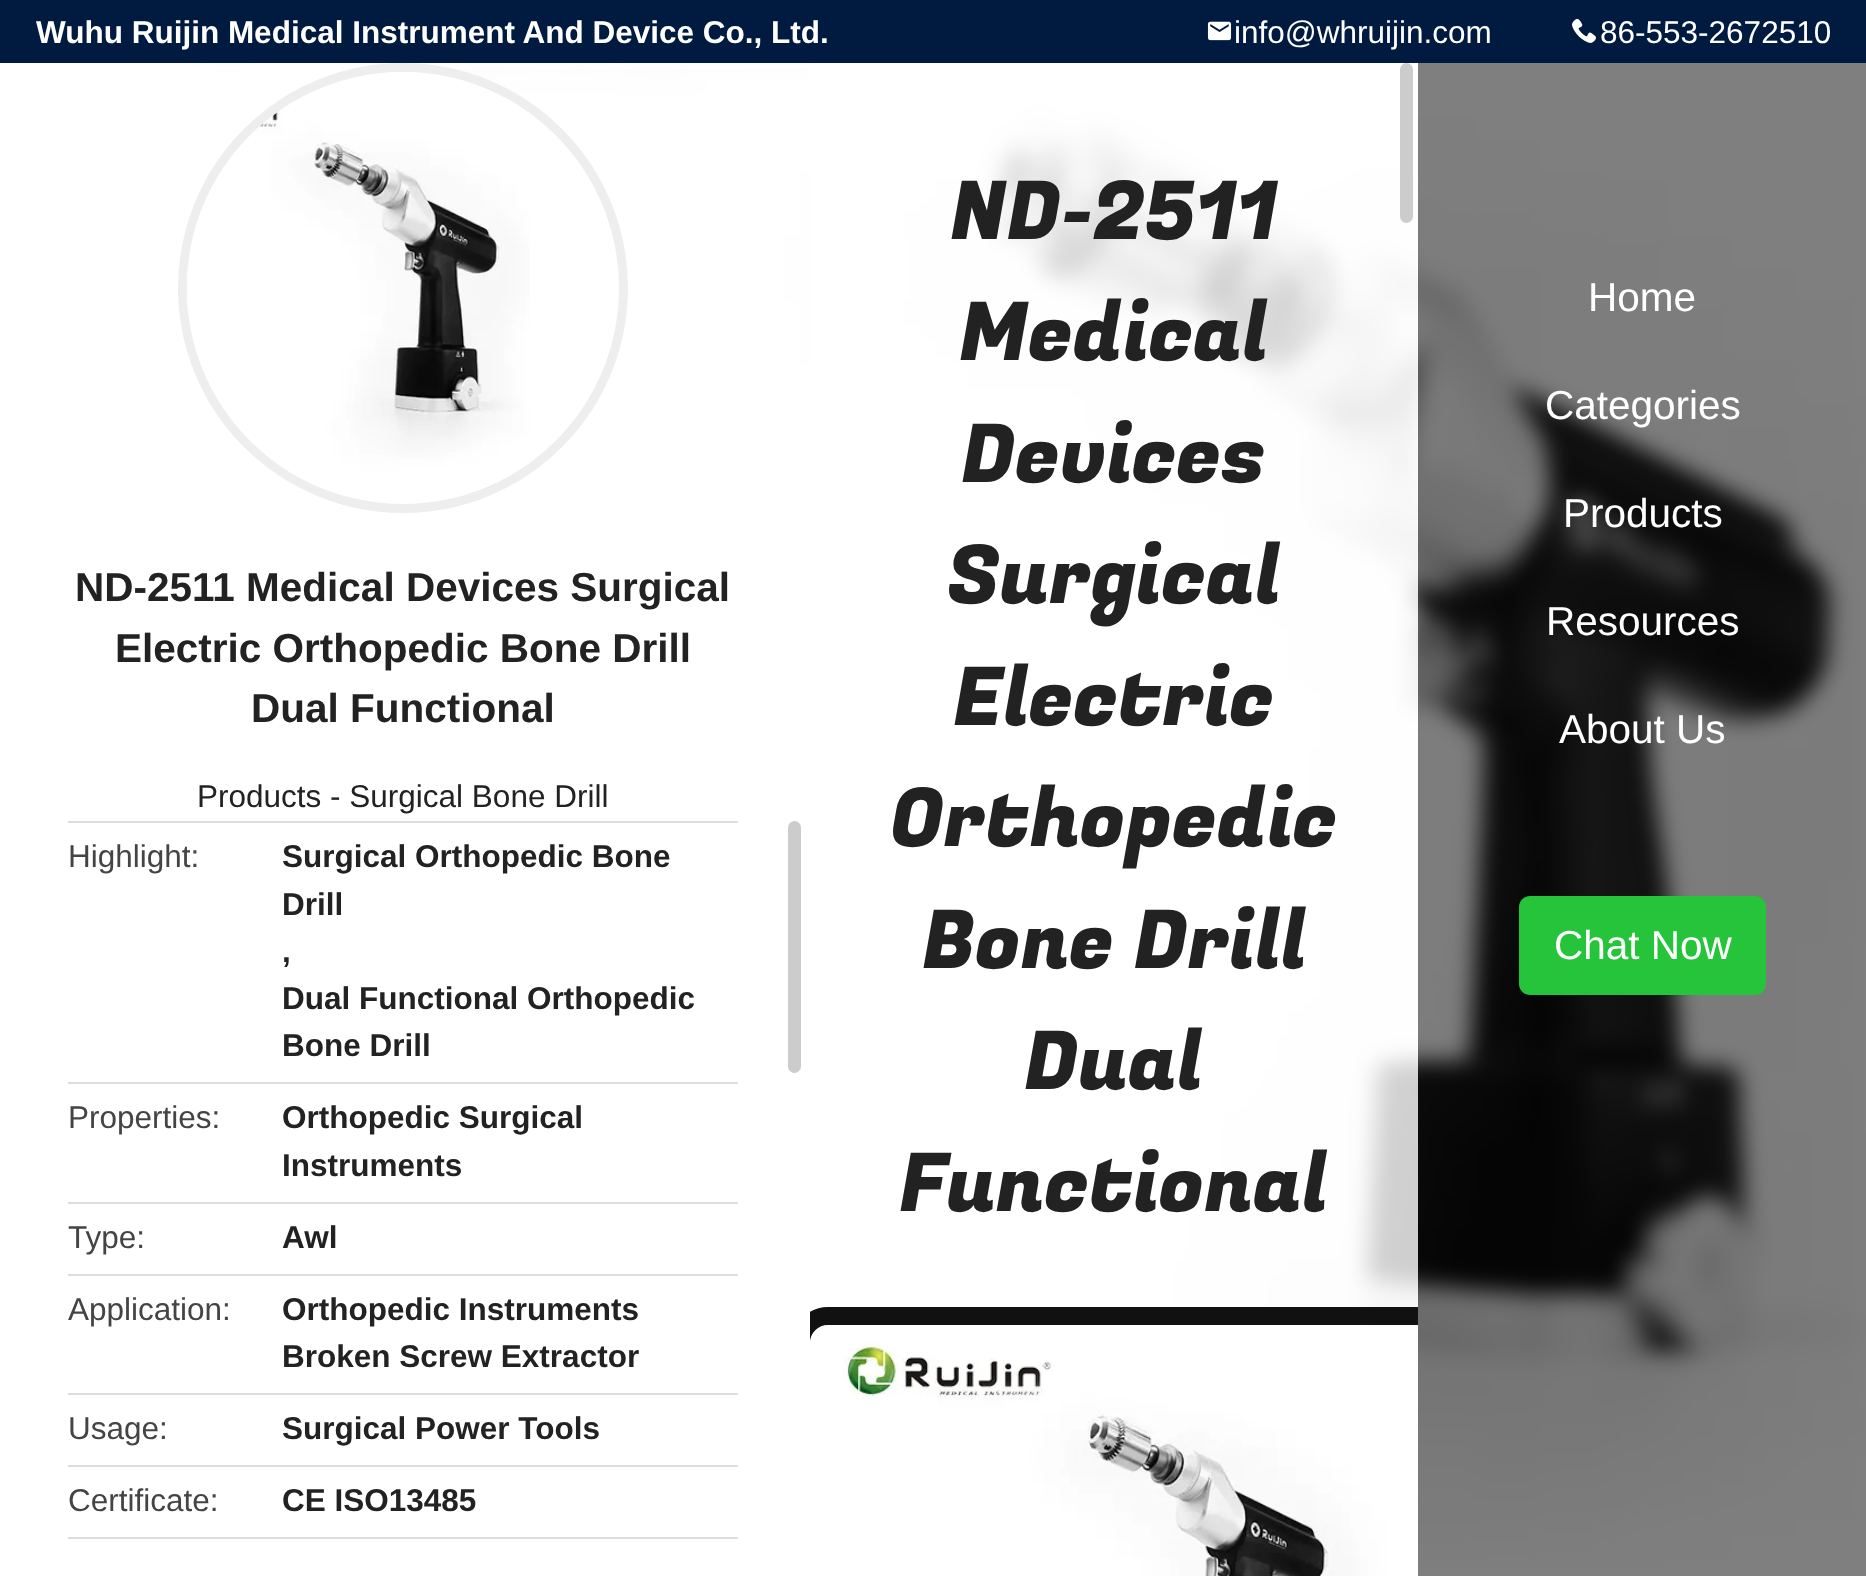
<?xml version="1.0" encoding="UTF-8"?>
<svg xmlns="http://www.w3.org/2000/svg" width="1866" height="1576">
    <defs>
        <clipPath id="clip1"><rect x="810" y="63" width="608" height="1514"/></clipPath>
    </defs>
    <rect width="100%" height="100%" fill="#FFFFFF"/>
    <rect x="0" y="0" width="1866" height="63" fill="#001B3F"/>
    <text x="36" y="43" font-family="Liberation Sans" font-size="31.5" font-weight="700" fill="#FFFFFF">Wuhu Ruijin Medical Instrument And Device Co., Ltd.</text>
    <image x="1207" y="21" width="25" height="20" href="img_01.png"/>
    <text x="1234" y="43" font-family="Liberation Sans" font-size="31.5" fill="#FFFFFF">info@whruijin.com</text>
    <image x="1572" y="18" width="24" height="25" href="img_02.png"/>
    <text x="1600" y="43" font-family="Liberation Sans" font-size="31.5" fill="#FFFFFF">86-553-2672510</text>
    <image x="135" y="63" width="1731" height="1505" href="img_03.png"/>
    <rect x="197" y="63" width="613" height="6" fill="#FFFFFF" fill-opacity="0.8"/>
    <circle cx="403" cy="288" r="220.5" fill="none" stroke="#EEEEEE" stroke-width="9"/>
    <image x="186" y="72" width="344" height="425" href="img_04.png"/>
    <text x="75" y="601" font-family="Liberation Sans" font-size="40.5" font-weight="700" fill="#222222">ND-2511 Medical Devices Surgical</text>
    <text x="115" y="662" font-family="Liberation Sans" font-size="40.5" font-weight="700" fill="#222222">Electric Orthopedic Bone Drill</text>
    <text x="251" y="722" font-family="Liberation Sans" font-size="40.5" font-weight="700" fill="#222222">Dual Functional</text>
    <text x="197" y="807" font-family="Liberation Sans" font-size="31.5" fill="#222222">Products - Surgical Bone Drill</text>
    <rect x="68" y="821" width="670" height="2" fill="#DDDDDD"/>
    <text x="68" y="867" font-family="Liberation Sans" font-size="31.5" fill="#444444">Highlight:</text>
    <text font-family="Liberation Sans" font-size="31.5" font-weight="700" fill="#222222">
        <tspan x="282" y="867">Surgical Orthopedic Bone</tspan>
        <tspan x="282" y="915">Drill</tspan>
        <tspan x="282" y="962">,</tspan>
        <tspan x="282" y="1009">Dual Functional Orthopedic</tspan>
        <tspan x="282" y="1056">Bone Drill</tspan>
    </text>
    <rect x="68" y="1082" width="670" height="2" fill="#DDDDDD"/>
    <text x="68" y="1128" font-family="Liberation Sans" font-size="31.5" fill="#444444">Properties:</text>
    <text font-family="Liberation Sans" font-size="31.5" font-weight="700" fill="#222222">
        <tspan x="282" y="1128">Orthopedic Surgical</tspan>
        <tspan x="282" y="1176">Instruments</tspan>
    </text>
    <rect x="68" y="1202" width="670" height="2" fill="#DDDDDD"/>
    <text x="68" y="1248" font-family="Liberation Sans" font-size="31.5" fill="#444444">Type:</text>
    <text x="282" y="1248" font-family="Liberation Sans" font-size="31.5" font-weight="700" fill="#222222">Awl</text>
    <rect x="68" y="1274" width="670" height="2" fill="#DDDDDD"/>
    <text x="68" y="1320" font-family="Liberation Sans" font-size="31.5" fill="#444444">Application:</text>
    <text font-family="Liberation Sans" font-size="31.5" font-weight="700" fill="#222222">
        <tspan x="282" y="1320">Orthopedic Instruments</tspan>
        <tspan x="282" y="1367">Broken Screw Extractor</tspan>
    </text>
    <rect x="68" y="1393" width="670" height="2" fill="#DDDDDD"/>
    <text x="68" y="1439" font-family="Liberation Sans" font-size="31.5" fill="#444444">Usage:</text>
    <text x="282" y="1439" font-family="Liberation Sans" font-size="31.5" font-weight="700" fill="#222222">Surgical Power Tools</text>
    <rect x="68" y="1465" width="670" height="2" fill="#DDDDDD"/>
    <text x="68" y="1511" font-family="Liberation Sans" font-size="31.5" fill="#444444">Certificate:</text>
    <text x="282" y="1511" font-family="Liberation Sans" font-size="31.5" font-weight="700" fill="#222222">CE ISO13485</text>
    <rect x="68" y="1537" width="670" height="2" fill="#DDDDDD"/>
    <rect x="788" y="821" width="13" height="252" rx="6.5" fill="#CCCCCC"/>
    <rect x="810" y="63" width="608" height="1505" fill="#FFFFFF" fill-opacity="0.8"/>
    <rect x="1400" y="63" width="13" height="160" rx="6.5" fill="#CCCCCC"/>
    <text x="950" y="239" font-family="Fugaz One" font-size="81" fill="#222222">ND-2511</text>
    <text x="959" y="360" font-family="Fugaz One" font-size="81" fill="#222222">Medical</text>
    <text x="961" y="482" font-family="Fugaz One" font-size="81" fill="#222222">Devices</text>
    <text x="947" y="603" font-family="Fugaz One" font-size="81" fill="#222222">Surgical</text>
    <text x="953" y="725" font-family="Fugaz One" font-size="81" fill="#222222">Electric</text>
    <text x="890" y="846" font-family="Fugaz One" font-size="81" fill="#222222">Orthopedic</text>
    <text x="922" y="968" font-family="Fugaz One" font-size="81" fill="#222222">Bone Drill</text>
    <text x="1024" y="1089" font-family="Fugaz One" font-size="81" fill="#222222">Dual</text>
    <text x="899" y="1211" font-family="Fugaz One" font-size="81" fill="#222222">Functional</text>
    <rect x="1418" y="63" width="448" height="1513" fill="#000000" fill-opacity="0.5"/>
    <g clip-path="url(#clip1)">
        <rect x="801" y="1316" width="803" height="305" rx="27" fill="none" stroke="#111111" stroke-width="18"/>
    </g>
    <image x="810" y="1325" width="608" height="251" href="img_05.png"/>
    <text x="1588" y="311" font-family="Liberation Sans" font-size="40.5" fill="#FFFFFF">Home</text>
    <text x="1545" y="419" font-family="Liberation Sans" font-size="40.5" fill="#FFFFFF">Categories</text>
    <text x="1563" y="527" font-family="Liberation Sans" font-size="40.5" fill="#FFFFFF">Products</text>
    <text x="1546" y="635" font-family="Liberation Sans" font-size="40.5" fill="#FFFFFF">Resources</text>
    <text x="1559" y="743" font-family="Liberation Sans" font-size="40.5" fill="#FFFFFF">About Us</text>
    <rect x="1519" y="896" width="247" height="99" rx="11" fill="#26C43A"/>
    <text x="1554" y="959" font-family="Liberation Sans" font-size="40.5" fill="#FFFFFF">Chat Now</text>
</svg>
